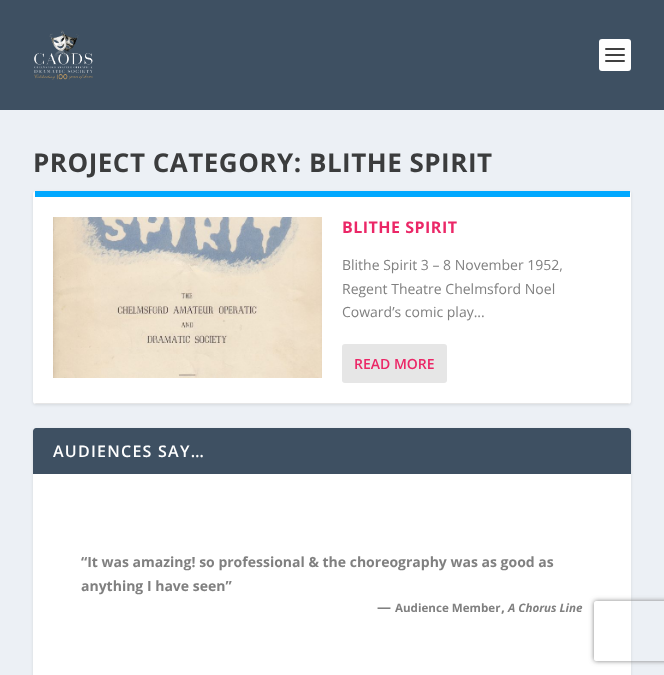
<?xml version="1.0" encoding="UTF-8"?>
<svg xmlns="http://www.w3.org/2000/svg" width="664" height="675">
    <defs>
        <filter id="blur1" x="-50%" y="-200%" width="200%" height="500%"><feGaussianBlur stdDeviation="1.5"/></filter>
        <clipPath id="clip1"><path d="M 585 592 H 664 V 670 H 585 Z M 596 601 H 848 C 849 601 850 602 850 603 V 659 C 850 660 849 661 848 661 H 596 C 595 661 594 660 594 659 V 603 C 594 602 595 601 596 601 Z" clip-rule="evenodd"/></clipPath>
        <filter id="blur2" x="-50%" y="-200%" width="200%" height="500%"><feGaussianBlur stdDeviation="2.5"/></filter>
    </defs>
    <rect width="100%" height="100%" fill="#ECF0F5"/>
    <rect x="0" y="0" width="664" height="110" fill="#3E5062"/>
    <image x="34" y="30" width="59" height="50" href="img_01.png"/>
    <rect x="599" y="39" width="32" height="32" rx="3" fill="#FFFFFF"/>
    <rect x="605" y="48" width="20" height="2" rx="1" fill="#404040"/>
    <rect x="605" y="54" width="20" height="2" rx="1" fill="#404040"/>
    <rect x="605" y="60" width="20" height="2" rx="1" fill="#404040"/>
    <text x="33" y="172" font-family="Open Sans" font-size="26" font-weight="700" letter-spacing="0.5" fill="#3B3C3D">PROJECT CATEGORY: BLITHE SPIRIT</text>
    <rect x="33" y="192" width="598" height="213" rx="3" fill="#000000" fill-opacity="0.1" filter="url(#blur1)"/>
    <rect x="33" y="191" width="598" height="213" rx="3" fill="#FFFFFF"/>
    <rect x="35" y="191" width="595" height="6" fill="#00A8FF"/>
    <path d="M 36 404 H 628 L 630 403 H 34 Z" fill="#E5E5E5"/>
    <image x="53" y="217" width="269" height="161" href="img_02.png"/>
    <text x="342" y="233" font-family="Open Sans" font-size="16" font-weight="700" letter-spacing="0.5" fill="#EB2767">BLITHE SPIRIT</text>
    <text font-family="Open Sans" font-size="14" fill="#808080">
        <tspan x="342" y="270">Blithe Spirit 3 – 8 November 1952,</tspan>
        <tspan x="342" y="294">Regent Theatre Chelmsford Noel</tspan>
        <tspan x="342" y="317">Coward’s comic play...</tspan>
    </text>
    <rect x="342" y="344" width="105" height="39" rx="3" fill="#E6E6E6"/>
    <text x="354" y="369" font-family="Open Sans" font-size="14" font-weight="600" fill="#EB2767">READ MORE</text>
    <rect x="33" y="429" width="598" height="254" rx="3" fill="#000000" fill-opacity="0.1" filter="url(#blur1)"/>
    <rect x="33" y="428" width="598" height="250" rx="3" fill="#FFFFFF"/>
    <path d="M 36 428 H 628 C 629.5 428 631 429.5 631 431 V 474 H 33 V 431 C 33 429.5 34.5 428 36 428 Z" fill="#3E5062"/>
    <text x="53" y="457" font-family="Open Sans" font-size="16" font-weight="600" letter-spacing="1.25" fill="#FFFFFF">AUDIENCES SAY…</text>
    <text font-family="Open Sans" font-size="14" font-weight="700" fill="#808080">
        <tspan x="81" y="567">“It was amazing! so professional &amp; the choreography was as good as</tspan>
        <tspan x="81" y="591">anything I have seen”</tspan>
    </text>
    <text x="377" y="612" font-family="Open Sans" font-size="14" font-weight="700" fill="#808080">—</text>
    <text x="395" y="612" font-family="Open Sans" font-size="11.6" font-weight="700" fill="#808080">Audience Member</text>
    <text x="508" y="612" font-family="Open Sans" font-size="11.6" font-weight="700" font-style="italic" fill="#808080">A Chorus Line</text>
    <text x="501" y="612" font-family="Open Sans" font-size="14" font-weight="700" fill="#808080">,</text>
    <g clip-path="url(#clip1)">
        <rect x="594" y="601" width="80" height="60" rx="2" fill="#808080" filter="url(#blur2)"/>
    </g>
</svg>
